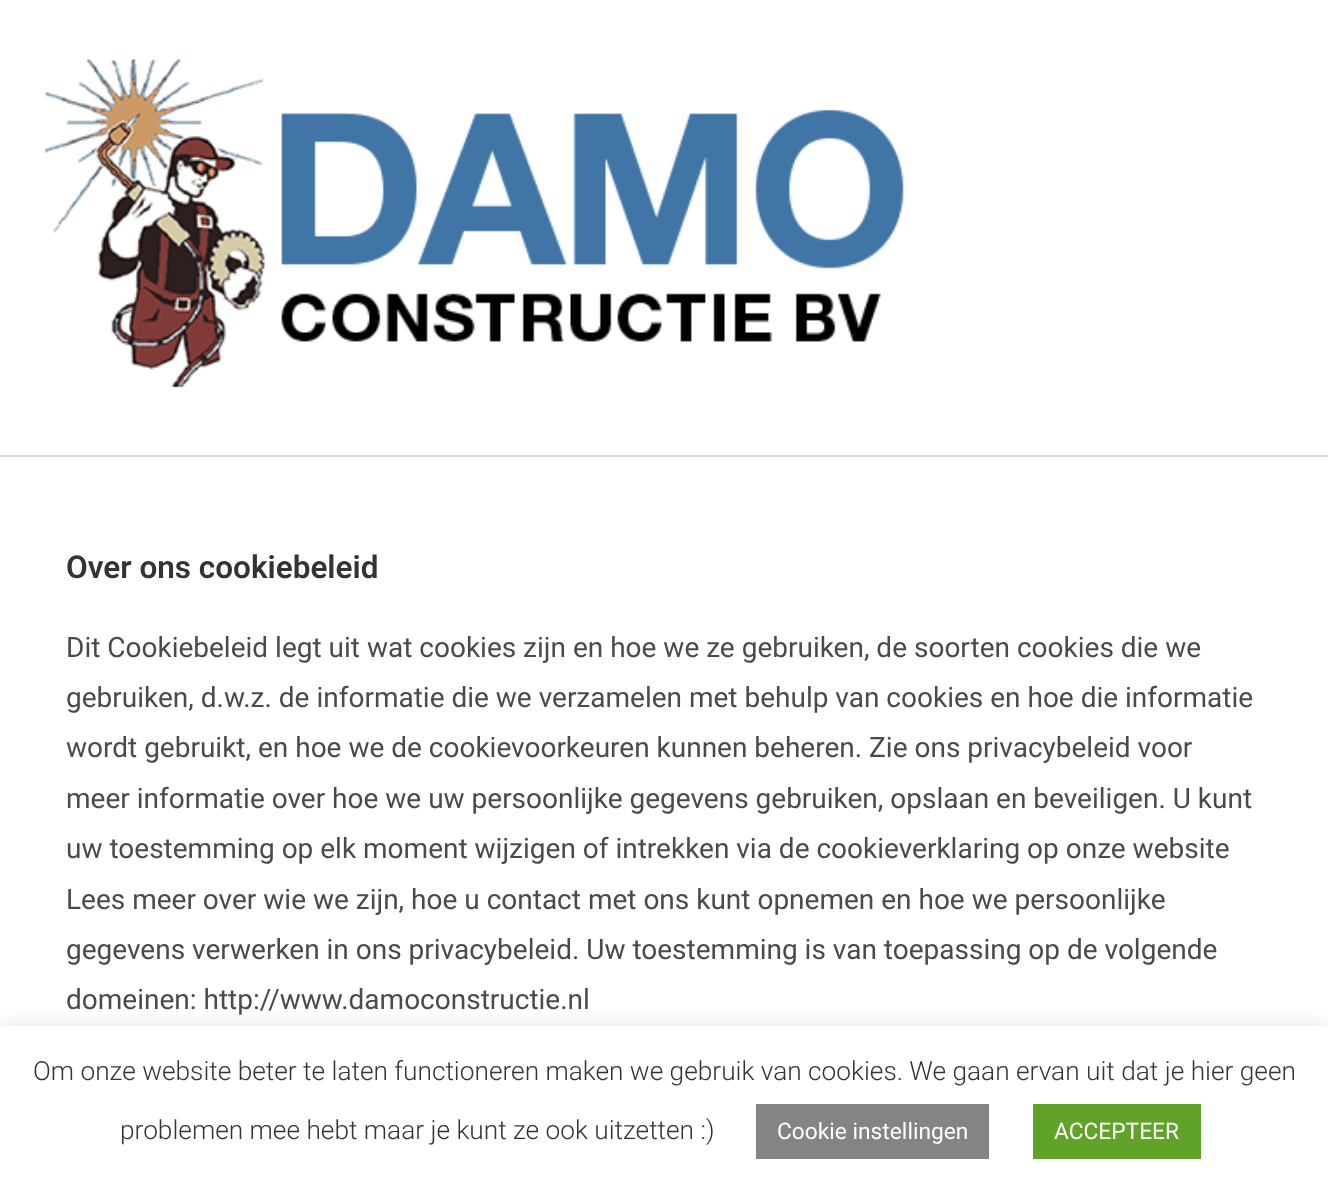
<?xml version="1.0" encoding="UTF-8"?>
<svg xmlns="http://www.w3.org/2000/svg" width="1328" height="1187">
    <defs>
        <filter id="blur1" x="-50%" y="-200%" width="200%" height="500%"><feGaussianBlur stdDeviation="9"/></filter>
    </defs>
    <rect width="100%" height="100%" fill="#FFFFFF"/>
    <rect x="0" y="455" width="1328" height="2" fill="#D8D8D8"/>
    <image x="45" y="59" width="859" height="329" href="img_01.png"/>
    <text x="66" y="578" font-family="Roboto" font-size="31.5" font-weight="600" fill="#333333">Over ons cookiebeleid</text>
    <text font-family="Roboto" font-size="28" fill="#4A4A4A">
        <tspan x="66" y="657">Dit Cookiebeleid legt uit wat cookies zijn en hoe we ze gebruiken, de soorten cookies die we</tspan>
        <tspan x="66" y="707">gebruiken, d.w.z. de informatie die we verzamelen met behulp van cookies en hoe die informatie</tspan>
        <tspan x="66" y="757">wordt gebruikt, en hoe we de cookievoorkeuren kunnen beheren. Zie ons privacybeleid voor</tspan>
        <tspan x="66" y="808">meer informatie over hoe we uw persoonlijke gegevens gebruiken, opslaan en beveiligen. U kunt</tspan>
        <tspan x="66" y="858">uw toestemming op elk moment wijzigen of intrekken via de cookieverklaring op onze website</tspan>
        <tspan x="66" y="909">Lees meer over wie we zijn, hoe u contact met ons kunt opnemen en hoe we persoonlijke</tspan>
        <tspan x="66" y="959">gegevens verwerken in ons privacybeleid. Uw toestemming is van toepassing op de volgende</tspan>
        <tspan x="66" y="1009">domeinen: http://www.damoconstructie.nl</tspan>
    </text>
    <rect x="0" y="1024" width="1328" height="163" fill="#ACABAB" fill-opacity="0.3" filter="url(#blur1)"/>
    <rect x="0" y="1026" width="1328" height="161" fill="#FFFFFF"/>
    <text x="33" y="1080" font-family="Roboto" font-size="26.25" font-weight="300" fill="#333333">Om onze website beter te laten functioneren maken we gebruik van cookies. We gaan ervan uit dat je hier geen</text>
    <text x="120" y="1139" font-family="Roboto" font-size="26.25" font-weight="300" fill="#333333">problemen mee hebt maar je kunt ze ook uitzetten :)</text>
    <rect x="756" y="1104" width="233" height="55" fill="#848484"/>
    <text x="777" y="1139" font-family="Roboto" font-size="22.75" fill="#FFFFFF">Cookie instellingen</text>
    <rect x="1033" y="1104" width="168" height="55" fill="#61A229"/>
    <text x="1054" y="1139" font-family="Roboto" font-size="22.75" fill="#FFFFFF">ACCEPTEER</text>
</svg>
